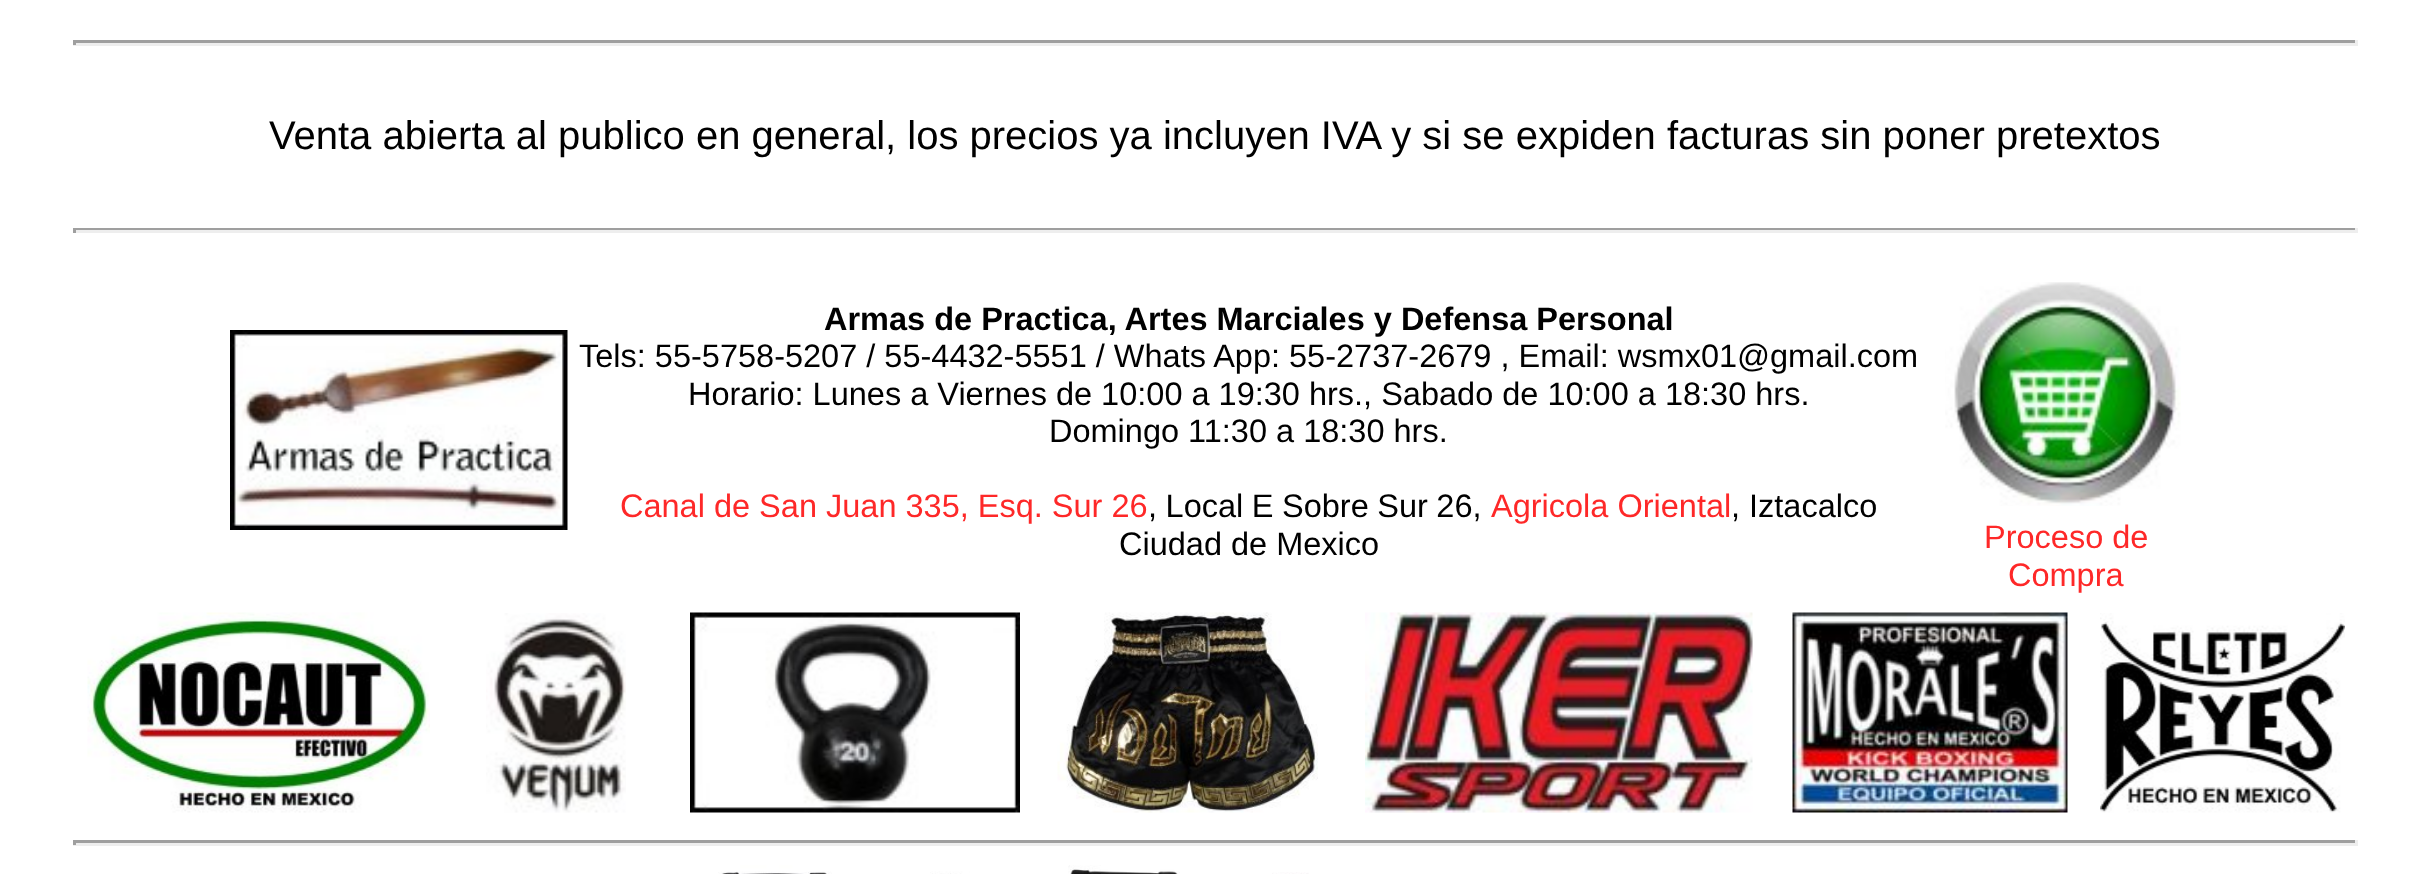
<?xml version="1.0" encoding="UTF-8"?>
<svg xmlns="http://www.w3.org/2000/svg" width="2428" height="874">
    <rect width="100%" height="100%" fill="#FFFFFF"/>
    <rect x="73" y="40" width="2285" height="3" fill="#9F9F9F"/>
    <rect x="2355" y="40" width="3" height="5" fill="#EEEEEE"/>
    <rect x="73" y="43" width="2285" height="3" fill="#EEEEEE"/>
    <rect x="73" y="40" width="3" height="5" fill="#9F9F9F"/>
    <text x="269" y="149" font-family="Liberation Sans" font-size="40" fill="#000000">Venta abierta al publico en general, los precios ya incluyen IVA y si se expiden facturas sin poner pretextos</text>
    <rect x="73" y="228" width="2285" height="2" fill="#9F9F9F"/>
    <rect x="2355" y="228" width="3" height="5" fill="#EEEEEE"/>
    <rect x="73" y="230" width="2285" height="3" fill="#EEEEEE"/>
    <rect x="73" y="228" width="3" height="5" fill="#9F9F9F"/>
    <image x="230" y="330" width="338" height="200" href="img_01.png"/>
    <text x="824" y="330" font-family="Liberation Sans" font-size="32.5" font-weight="700" fill="#000000">Armas de Practica, Artes Marciales y Defensa Personal</text>
    <text x="579" y="367" font-family="Liberation Sans" font-size="32.5" fill="#000000">Tels: 55-5758-5207 / 55-4432-5551 / Whats App: 55-2737-2679 , Email: wsmx01@gmail.com</text>
    <text x="688" y="405" font-family="Liberation Sans" font-size="32.5" fill="#000000">Horario: Lunes a Viernes de 10:00 a 19:30 hrs., Sabado de 10:00 a 18:30 hrs.</text>
    <text x="1049" y="442" font-family="Liberation Sans" font-size="32.5" fill="#000000">Domingo 11:30 a 18:30 hrs.</text>
    <text x="620" y="517" font-family="Liberation Sans" font-size="32.5" fill="#FE2828">Canal de San Juan 335, Esq. Sur 26</text>
    <text x="1148" y="517" word-spacing="-0.5" font-family="Liberation Sans" font-size="32.5" fill="#000000">, Local E Sobre Sur 26,</text>
    <text x="1491" y="517" font-family="Liberation Sans" font-size="32.5" fill="#FE2828">Agricola Oriental</text>
    <text x="1731" y="517" font-family="Liberation Sans" font-size="32.5" fill="#000000">, Iztacalco</text>
    <text x="1119" y="555" font-family="Liberation Sans" font-size="32.5" fill="#000000">Ciudad de Mexico</text>
    <image x="1945" y="282" width="236" height="224" href="img_02.png"/>
    <text x="1984" y="548" font-family="Liberation Sans" font-size="32.5" fill="#FE2828">Proceso de</text>
    <text x="2008" y="586" font-family="Liberation Sans" font-size="32.5" fill="#FE2828">Compra</text>
    <image x="87" y="612" width="343" height="201" href="img_03.png"/>
    <image x="486" y="613" width="140" height="200" href="img_04.png"/>
    <image x="690" y="612" width="330" height="201" href="img_05.png"/>
    <image x="1057" y="612" width="261" height="201" href="img_06.png"/>
    <image x="1365" y="612" width="388" height="201" href="img_07.png"/>
    <image x="1792" y="612" width="276" height="201" href="img_08.png"/>
    <image x="2100" y="613" width="245" height="200" href="img_09.png"/>
    <rect x="73" y="840" width="2285" height="3" fill="#9F9F9F"/>
    <rect x="2355" y="840" width="3" height="5" fill="#EEEEEE"/>
    <rect x="73" y="843" width="2285" height="3" fill="#EEEEEE"/>
    <rect x="73" y="840" width="3" height="5" fill="#9F9F9F"/>
    <image x="718" y="865" width="462" height="9" href="img_10.png"/>
    <image x="1272" y="872" width="37" height="2" href="img_11.png"/>
</svg>
